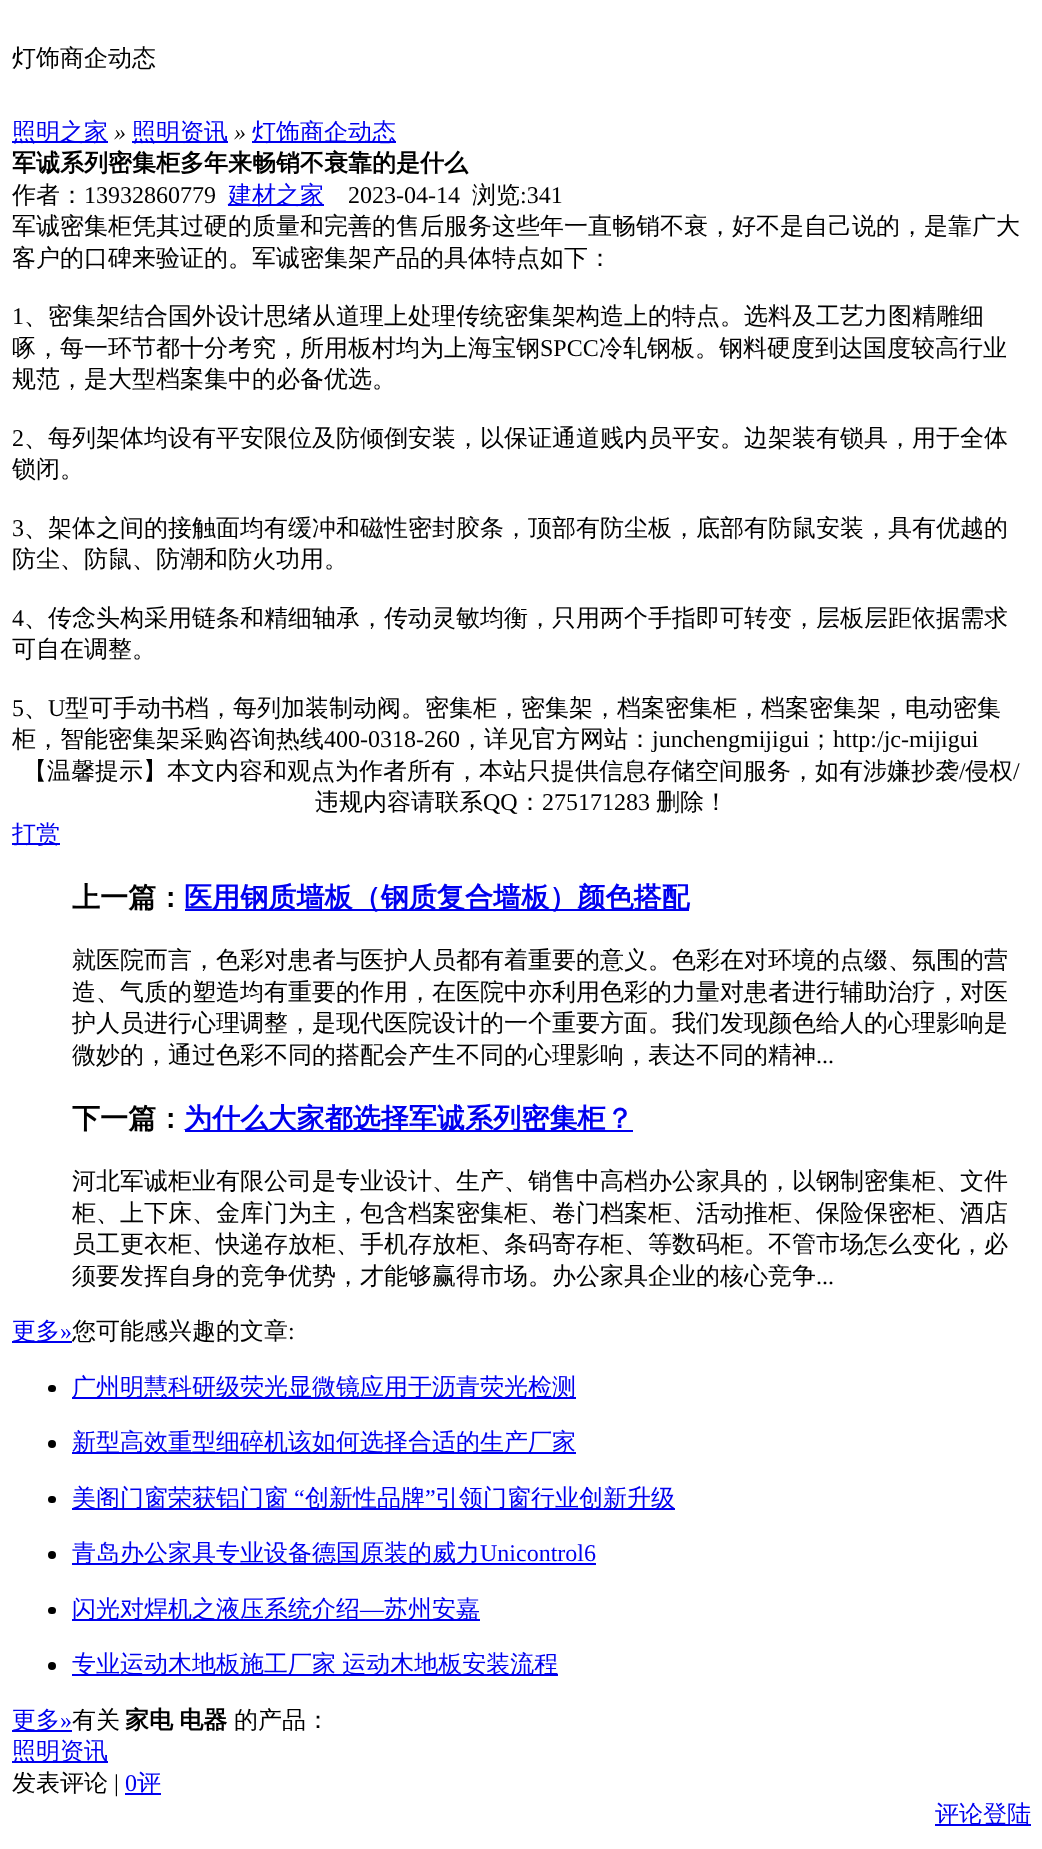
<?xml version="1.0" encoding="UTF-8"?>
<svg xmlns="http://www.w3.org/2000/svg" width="1042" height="1849">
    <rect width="100%" height="100%" fill="#FFFFFF"/>
    <text x="12" y="66" font-family="WenQuanYi Zen Hei" font-size="24" font-weight="500" fill="#000000">灯饰商企动态</text>
    <rect x="12" y="141" width="96" height="2" fill="#0000EE"/>
    <text x="12" y="140" font-family="WenQuanYi Zen Hei" font-size="24" font-weight="500" fill="#0000EE">照明之家</text>
    <text x="114" y="140" font-family="Liberation Serif" font-size="24" font-style="italic" fill="#000000">»</text>
    <rect x="132" y="141" width="96" height="2" fill="#0000EE"/>
    <text x="132" y="140" font-family="WenQuanYi Zen Hei" font-size="24" font-weight="500" fill="#0000EE">照明资讯</text>
    <text x="234" y="140" font-family="Liberation Serif" font-size="24" font-style="italic" fill="#000000">»</text>
    <rect x="252" y="141" width="144" height="2" fill="#0000EE"/>
    <text x="252" y="140" font-family="WenQuanYi Zen Hei" font-size="24" font-weight="500" fill="#0000EE">灯饰商企动态</text>
    <text x="12" y="171" font-family="WenQuanYi Zen Hei" font-size="24" font-weight="700" fill="#000000">军诚系列密集柜多年来畅销不衰靠的是什么</text>
    <text x="12" y="203" font-family="WenQuanYi Zen Hei" font-size="24" font-weight="500" fill="#000000">作者：</text>
    <text x="84" y="203" font-family="Liberation Serif" font-size="24" fill="#000000">13932860779</text>
    <rect x="228" y="204" width="96" height="2" fill="#0000EE"/>
    <text x="228" y="203" font-family="WenQuanYi Zen Hei" font-size="24" font-weight="500" fill="#0000EE">建材之家</text>
    <text x="348" y="203" font-family="Liberation Serif" font-size="24" fill="#000000">2023-04-14</text>
    <text x="472" y="203" font-family="WenQuanYi Zen Hei" font-size="24" font-weight="500" fill="#000000">浏览</text>
    <text x="520" y="203" font-family="Liberation Serif" font-size="24" fill="#000000">:341</text>
    <text font-family="WenQuanYi Zen Hei" font-size="24" font-weight="500" fill="#000000">
        <tspan x="12" y="234">军诚密集柜凭其过硬的质量和完善的售后服务这些年一直畅销不衰，好不是自己说的，是靠广大</tspan>
        <tspan x="12" y="266">客户的口碑来验证的。军诚密集架产品的具体特点如下：</tspan>
    </text>
    <text x="12" y="324" font-family="Liberation Serif" font-size="24" fill="#000000">1</text>
    <text x="24" y="324" font-family="WenQuanYi Zen Hei" font-size="24" font-weight="500" fill="#000000">、密集架结合国外设计思绪从道理上处理传统密集架构造上的特点。选料及工艺力图精雕细</text>
    <text x="12" y="356" font-family="WenQuanYi Zen Hei" font-size="24" font-weight="500" fill="#000000">啄，每一环节都十分考究，所用板村均为上海宝钢</text>
    <text x="540" y="356" font-family="Liberation Serif" font-size="24" fill="#000000">SPCC</text>
    <text x="599" y="356" font-family="WenQuanYi Zen Hei" font-size="24" font-weight="500" fill="#000000">冷轧钢板。钢料硬度到达国度较高行业</text>
    <text x="12" y="387" font-family="WenQuanYi Zen Hei" font-size="24" font-weight="500" fill="#000000">规范，是大型档案集中的必备优选。</text>
    <text x="12" y="446" font-family="Liberation Serif" font-size="24" fill="#000000">2</text>
    <text x="24" y="446" font-family="WenQuanYi Zen Hei" font-size="24" font-weight="500" fill="#000000">、每列架体均设有平安限位及防倾倒安装，以保证通道贱内员平安。边架装有锁具，用于全体</text>
    <text x="12" y="477" font-family="WenQuanYi Zen Hei" font-size="24" font-weight="500" fill="#000000">锁闭。</text>
    <text x="12" y="536" font-family="Liberation Serif" font-size="24" fill="#000000">3</text>
    <text x="24" y="536" font-family="WenQuanYi Zen Hei" font-size="24" font-weight="500" fill="#000000">、架体之间的接触面均有缓冲和磁性密封胶条，顶部有防尘板，底部有防鼠安装，具有优越的</text>
    <text x="12" y="567" font-family="WenQuanYi Zen Hei" font-size="24" font-weight="500" fill="#000000">防尘、防鼠、防潮和防火功用。</text>
    <text x="12" y="626" font-family="Liberation Serif" font-size="24" fill="#000000">4</text>
    <text x="24" y="626" font-family="WenQuanYi Zen Hei" font-size="24" font-weight="500" fill="#000000">、传念头构采用链条和精细轴承，传动灵敏均衡，只用两个手指即可转变，层板层距依据需求</text>
    <text x="12" y="657" font-family="WenQuanYi Zen Hei" font-size="24" font-weight="500" fill="#000000">可自在调整。</text>
    <text x="12" y="716" font-family="Liberation Serif" font-size="24" fill="#000000">5</text>
    <text x="24" y="716" font-family="WenQuanYi Zen Hei" font-size="24" font-weight="500" fill="#000000">、</text>
    <text x="48" y="716" font-family="Liberation Serif" font-size="24" fill="#000000">U</text>
    <text x="65" y="716" font-family="WenQuanYi Zen Hei" font-size="24" font-weight="500" fill="#000000">型可手动书档，每列加装制动阀。密集柜，密集架，档案密集柜，档案密集架，电动密集</text>
    <text x="12" y="747" font-family="WenQuanYi Zen Hei" font-size="24" font-weight="500" fill="#000000">柜，智能密集架采购咨询热线</text>
    <text x="324" y="747" font-family="Liberation Serif" font-size="24" fill="#000000">400-0318-260</text>
    <text x="460" y="747" font-family="WenQuanYi Zen Hei" font-size="24" font-weight="500" fill="#000000">，详见官方网站：</text>
    <text x="652" y="747" font-family="Liberation Serif" font-size="24" fill="#000000">junchengmijigui</text>
    <text x="809" y="747" font-family="WenQuanYi Zen Hei" font-size="24" font-weight="500" fill="#000000">；</text>
    <text x="833" y="747" font-family="Liberation Serif" font-size="24" fill="#000000">http:/jc-mijigui</text>
    <text x="23" y="779" font-family="WenQuanYi Zen Hei" font-size="24" font-weight="500" fill="#000000">【温馨提示】本文内容和观点为作者所有，本站只提供信息存储空间服务，如有涉嫌抄袭</text>
    <text x="959" y="779" font-family="Liberation Serif" font-size="24" fill="#000000">/</text>
    <text x="965" y="779" font-family="WenQuanYi Zen Hei" font-size="24" font-weight="500" fill="#000000">侵权</text>
    <text x="1013" y="779" font-family="Liberation Serif" font-size="24" fill="#000000">/</text>
    <text x="315" y="810" font-family="WenQuanYi Zen Hei" font-size="24" font-weight="500" fill="#000000">违规内容请联系</text>
    <text x="483" y="810" font-family="Liberation Serif" font-size="24" fill="#000000">QQ</text>
    <text x="518" y="810" font-family="WenQuanYi Zen Hei" font-size="24" font-weight="500" fill="#000000">：</text>
    <text x="542" y="810" font-family="Liberation Serif" font-size="24" fill="#000000">275171283</text>
    <text x="656" y="810" font-family="WenQuanYi Zen Hei" font-size="24" font-weight="500" fill="#000000">删除！</text>
    <rect x="12" y="843" width="48" height="2" fill="#0000EE"/>
    <text x="12" y="842" font-family="WenQuanYi Zen Hei" font-size="24" font-weight="500" fill="#0000EE">打赏</text>
    <text x="72" y="907" font-family="WenQuanYi Zen Hei" font-size="28.1" font-weight="700" fill="#000000">上一篇：</text>
    <rect x="185" y="909" width="504" height="2" fill="#0000EE"/>
    <text x="184" y="907" font-family="WenQuanYi Zen Hei" font-size="28.1" font-weight="700" fill="#0000EE">医用钢质墙板（钢质复合墙板）颜色搭配</text>
    <text font-family="WenQuanYi Zen Hei" font-size="24" font-weight="500" fill="#000000">
        <tspan x="72" y="968">就医院而言，色彩对患者与医护人员都有着重要的意义。色彩在对环境的点缀、氛围的营</tspan>
        <tspan x="72" y="1000">造、气质的塑造均有重要的作用，在医院中亦利用色彩的力量对患者进行辅助治疗，对医</tspan>
        <tspan x="72" y="1031">护人员进行心理调整，是现代医院设计的一个重要方面。我们发现颜色给人的心理影响是</tspan>
        <tspan x="72" y="1063">微妙的，通过色彩不同的搭配会产生不同的心理影响，表达不同的精神</tspan>
    </text>
    <text x="816" y="1063" font-family="Liberation Serif" font-size="24" fill="#000000">...</text>
    <text x="72" y="1128" font-family="WenQuanYi Zen Hei" font-size="28.1" font-weight="700" fill="#000000">下一篇：</text>
    <rect x="185" y="1130" width="448" height="2" fill="#0000EE"/>
    <text x="184" y="1128" font-family="WenQuanYi Zen Hei" font-size="28.1" font-weight="700" fill="#0000EE">为什么大家都选择军诚系列密集柜？</text>
    <text font-family="WenQuanYi Zen Hei" font-size="24" font-weight="500" fill="#000000">
        <tspan x="72" y="1189">河北军诚柜业有限公司是专业设计、生产、销售中高档办公家具的，以钢制密集柜、文件</tspan>
        <tspan x="72" y="1221">柜、上下床、金库门为主，包含档案密集柜、卷门档案柜、活动推柜、保险保密柜、酒店</tspan>
        <tspan x="72" y="1252">员工更衣柜、快递存放柜、手机存放柜、条码寄存柜、等数码柜。不管市场怎么变化，必</tspan>
        <tspan x="72" y="1284">须要发挥自身的竞争优势，才能够赢得市场。办公家具企业的核心竞争</tspan>
    </text>
    <text x="816" y="1284" font-family="Liberation Serif" font-size="24" fill="#000000">...</text>
    <rect x="12" y="1341" width="60" height="2" fill="#0000EE"/>
    <text x="12" y="1339" font-family="WenQuanYi Zen Hei" font-size="24" font-weight="500" fill="#0000EE">更多</text>
    <text x="60" y="1339" font-family="Liberation Serif" font-size="24" fill="#0000EE">»</text>
    <text x="72" y="1339" font-family="WenQuanYi Zen Hei" font-size="24" font-weight="500" fill="#000000">您可能感兴趣的文章</text>
    <text x="288" y="1339" font-family="Liberation Serif" font-size="24" fill="#000000">:</text>
    <rect x="48" y="1385" width="8" height="7" rx="3.5" fill="#000000"/>
    <rect x="72" y="1397" width="504" height="2" fill="#0000EE"/>
    <text x="72" y="1395" font-family="WenQuanYi Zen Hei" font-size="24" font-weight="500" fill="#0000EE">广州明慧科研级荧光显微镜应用于沥青荧光检测</text>
    <circle cx="52" cy="1444" r="4" fill="#000000"/>
    <rect x="72" y="1452" width="504" height="2" fill="#0000EE"/>
    <text x="72" y="1450" font-family="WenQuanYi Zen Hei" font-size="24" font-weight="500" fill="#0000EE">新型高效重型细碎机该如何选择合适的生产厂家</text>
    <rect x="72" y="1508" width="603" height="2" fill="#0000EE"/>
    <text x="72" y="1506" font-family="WenQuanYi Zen Hei" font-size="24" font-weight="500" fill="#0000EE">美阁门窗荣获铝门窗</text>
    <text x="294" y="1506" font-family="Liberation Serif" font-size="24" fill="#0000EE">“</text>
    <text x="305" y="1506" font-family="WenQuanYi Zen Hei" font-size="24" font-weight="500" fill="#0000EE">创新性品牌</text>
    <text x="425" y="1506" font-family="Liberation Serif" font-size="24" fill="#0000EE">”</text>
    <text x="435" y="1506" font-family="WenQuanYi Zen Hei" font-size="24" font-weight="500" fill="#0000EE">引领门窗行业创新升级</text>
    <rect x="48" y="1496" width="8" height="7" rx="3.5" fill="#000000"/>
    <circle cx="52" cy="1555" r="4" fill="#000000"/>
    <rect x="72" y="1563" width="524" height="2" fill="#0000EE"/>
    <text x="72" y="1561" font-family="WenQuanYi Zen Hei" font-size="24" font-weight="500" fill="#0000EE">青岛办公家具专业设备德国原装的威力</text>
    <text x="480" y="1561" font-family="Liberation Serif" font-size="24" fill="#0000EE">Unicontrol6</text>
    <rect x="48" y="1607" width="8" height="7" rx="3.5" fill="#000000"/>
    <rect x="72" y="1619" width="408" height="2" fill="#0000EE"/>
    <text x="72" y="1617" font-family="WenQuanYi Zen Hei" font-size="24" font-weight="500" fill="#0000EE">闪光对焊机之液压系统介绍</text>
    <text x="360" y="1617" font-family="Liberation Serif" font-size="24" fill="#0000EE">—</text>
    <text x="384" y="1617" font-family="WenQuanYi Zen Hei" font-size="24" font-weight="500" fill="#0000EE">苏州安嘉</text>
    <circle cx="52" cy="1666" r="4" fill="#000000"/>
    <rect x="72" y="1674" width="486" height="2" fill="#0000EE"/>
    <text x="72" y="1672" word-spacing="-1" font-family="WenQuanYi Zen Hei" font-size="24" font-weight="500" fill="#0000EE">专业运动木地板施工厂家 运动木地板安装流程</text>
    <rect x="12" y="1730" width="60" height="2" fill="#0000EE"/>
    <text x="12" y="1728" font-family="WenQuanYi Zen Hei" font-size="24" font-weight="500" fill="#0000EE">更多</text>
    <text x="60" y="1728" font-family="Liberation Serif" font-size="24" fill="#0000EE">»</text>
    <text x="72" y="1728" font-family="WenQuanYi Zen Hei" font-size="24" font-weight="500" fill="#000000">有关</text>
    <text x="125" y="1728" word-spacing="-1" font-family="WenQuanYi Zen Hei" font-size="24" font-weight="700" fill="#000000">家电 电器</text>
    <text x="234" y="1728" font-family="WenQuanYi Zen Hei" font-size="24" font-weight="500" fill="#000000">的产品：</text>
    <rect x="12" y="1761" width="96" height="2" fill="#0000EE"/>
    <text x="12" y="1759" font-family="WenQuanYi Zen Hei" font-size="24" font-weight="500" fill="#0000EE">照明资讯</text>
    <text x="12" y="1791" font-family="WenQuanYi Zen Hei" font-size="24" font-weight="500" fill="#000000">发表评论</text>
    <text x="114" y="1791" font-family="Liberation Serif" font-size="24" fill="#000000">|</text>
    <text x="125" y="1791" font-family="Liberation Serif" font-size="24" fill="#0000EE">0</text>
    <rect x="125" y="1793" width="36" height="2" fill="#0000EE"/>
    <text x="137" y="1791" font-family="WenQuanYi Zen Hei" font-size="24" font-weight="500" fill="#0000EE">评</text>
    <rect x="935" y="1824" width="96" height="2" fill="#0000EE"/>
    <text x="935" y="1822" font-family="WenQuanYi Zen Hei" font-size="24" font-weight="500" fill="#0000EE">评论登陆</text>
</svg>
